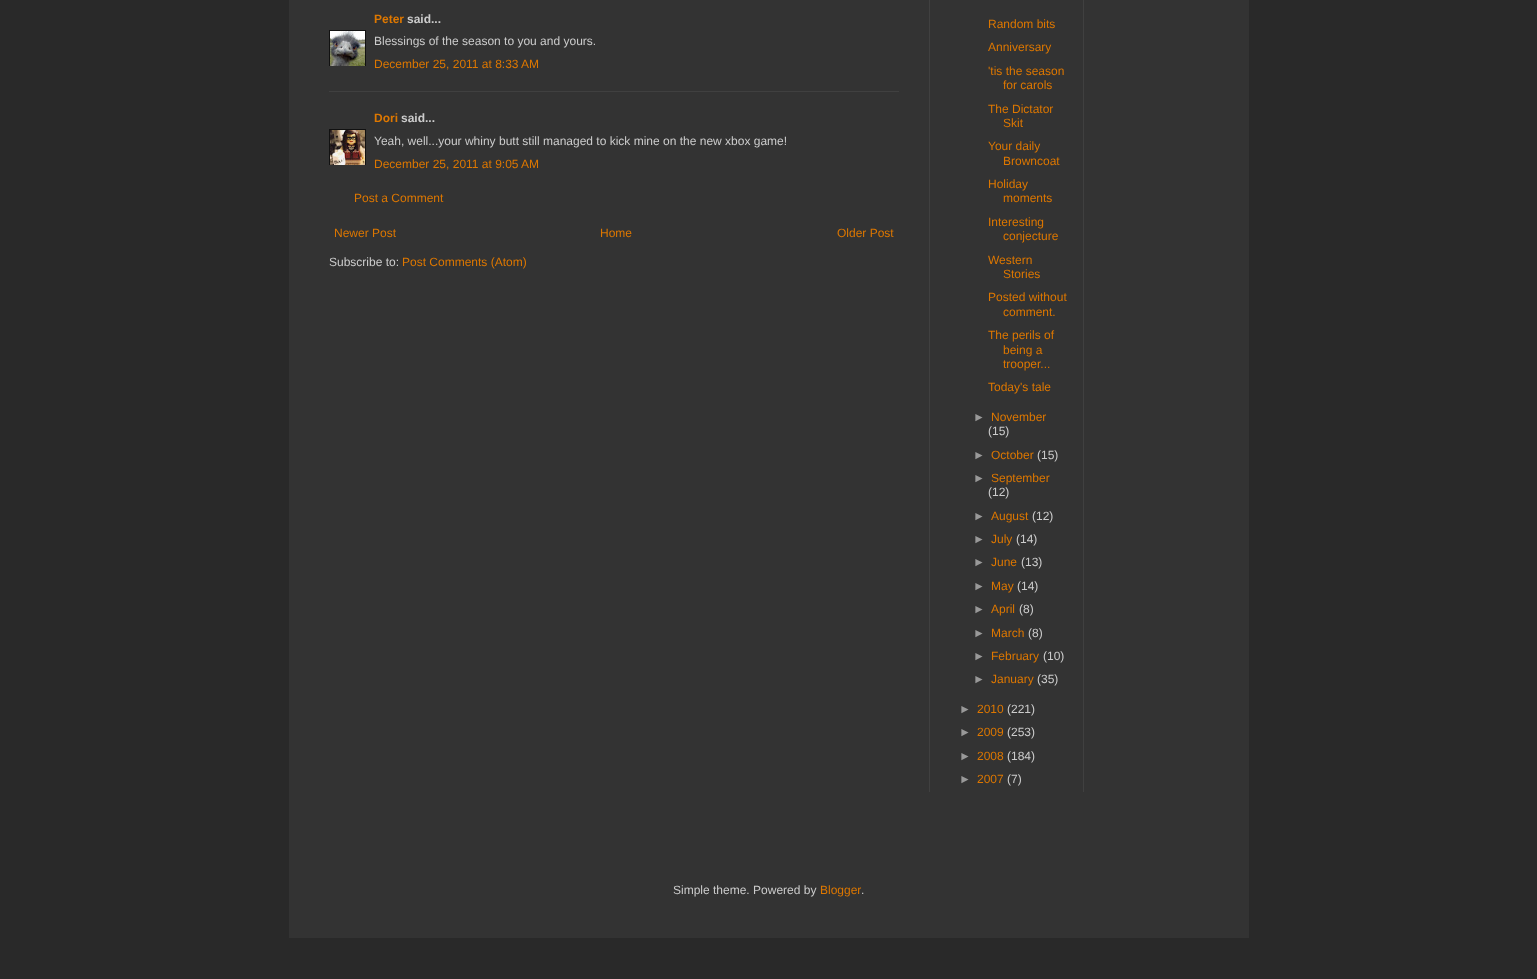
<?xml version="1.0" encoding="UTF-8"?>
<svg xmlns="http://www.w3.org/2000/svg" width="1537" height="979">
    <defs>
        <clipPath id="clip1"><rect x="329" y="30" width="37" height="36"/></clipPath>
        <clipPath id="clip2"><rect x="329" y="129" width="37" height="36"/></clipPath>
    </defs>
    <rect width="100%" height="100%" fill="#292929"/>
    <rect x="289" y="0" width="960" height="938" fill="#333333"/>
    <rect x="929" y="0" width="1" height="792" fill="#404040"/>
    <text x="374" y="23" font-family="Liberation Sans" font-size="12" font-weight="700" fill="#DD7700">Peter</text>
    <text x="407" y="23" font-family="Liberation Sans" font-size="12" font-weight="700" fill="#CCCCCC">said...</text>
    <g clip-path="url(#clip1)">
        <rect x="329.5" y="30.5" width="36" height="36" fill="none" stroke="#111111"/>
    </g>
    <image x="330" y="31" width="35" height="35" href="img_01.png"/>
    <text x="374" y="45" font-family="Liberation Sans" font-size="12" fill="#CCCCCC">Blessings of the season to you and yours.</text>
    <text x="374" y="68" font-family="Liberation Sans" font-size="12" fill="#DD7700">December 25, 2011 at 8:33 AM</text>
    <rect x="329" y="91" width="570" height="1" fill="#404040"/>
    <text x="374" y="122" font-family="Liberation Sans" font-size="12" font-weight="700" fill="#DD7700">Dori</text>
    <text x="401" y="122" font-family="Liberation Sans" font-size="12" font-weight="700" fill="#CCCCCC">said...</text>
    <g clip-path="url(#clip2)">
        <rect x="329.5" y="129.5" width="36" height="36" fill="none" stroke="#111111"/>
    </g>
    <image x="330" y="130" width="35" height="35" href="img_02.png"/>
    <text x="374" y="145" font-family="Liberation Sans" font-size="12" fill="#CCCCCC">Yeah, well...your whiny butt still managed to kick mine on the new xbox game!</text>
    <text x="374" y="168" font-family="Liberation Sans" font-size="12" fill="#DD7700">December 25, 2011 at 9:05 AM</text>
    <text x="354" y="202" font-family="Liberation Sans" font-size="12" fill="#DD7700">Post a Comment</text>
    <text x="334" y="237" font-family="Liberation Sans" font-size="12" fill="#DD7700">Newer Post</text>
    <text x="600" y="237" font-family="Liberation Sans" font-size="12" fill="#DD7700">Home</text>
    <text x="837" y="237" font-family="Liberation Sans" font-size="12" fill="#DD7700">Older Post</text>
    <text x="329" y="266" font-family="Liberation Sans" font-size="12" fill="#CCCCCC">Subscribe to:</text>
    <text x="402" y="266" font-family="Liberation Sans" font-size="12" fill="#DD7700">Post Comments (Atom)</text>
    <text font-family="Liberation Sans" font-size="12" fill="#DD7700">
        <tspan x="988" y="28">Random bits</tspan>
        <tspan x="988" y="51">Anniversary</tspan>
    </text>
    <text x="988" y="75" font-family="Liberation Sans" font-size="12" fill="#DD7700">'tis the season</text>
    <text x="1003" y="89" font-family="Liberation Sans" font-size="12" fill="#DD7700">for carols</text>
    <text x="988" y="113" font-family="Liberation Sans" font-size="12" fill="#DD7700">The Dictator</text>
    <text x="1003" y="127" font-family="Liberation Sans" font-size="12" fill="#DD7700">Skit</text>
    <text x="988" y="150" font-family="Liberation Sans" font-size="12" fill="#DD7700">Your daily</text>
    <text x="1003" y="165" font-family="Liberation Sans" font-size="12" fill="#DD7700">Browncoat</text>
    <text x="988" y="188" font-family="Liberation Sans" font-size="12" fill="#DD7700">Holiday</text>
    <text x="1003" y="202" font-family="Liberation Sans" font-size="12" fill="#DD7700">moments</text>
    <text x="988" y="226" font-family="Liberation Sans" font-size="12" fill="#DD7700">Interesting</text>
    <text x="1003" y="240" font-family="Liberation Sans" font-size="12" fill="#DD7700">conjecture</text>
    <text x="988" y="264" font-family="Liberation Sans" font-size="12" fill="#DD7700">Western</text>
    <text x="1003" y="278" font-family="Liberation Sans" font-size="12" fill="#DD7700">Stories</text>
    <text x="988" y="301" font-family="Liberation Sans" font-size="12" fill="#DD7700">Posted without</text>
    <text x="1003" y="316" font-family="Liberation Sans" font-size="12" fill="#DD7700">comment.</text>
    <text x="988" y="339" font-family="Liberation Sans" font-size="12" fill="#DD7700">The perils of</text>
    <text font-family="Liberation Sans" font-size="12" fill="#DD7700">
        <tspan x="1003" y="354">being a</tspan>
        <tspan x="1003" y="368">trooper...</tspan>
    </text>
    <text x="988" y="391" font-family="Liberation Sans" font-size="12" fill="#DD7700">Today's tale</text>
    <text x="973" y="421" font-family="Liberation Sans" font-size="12" fill="#999999">►</text>
    <text x="991" y="421" font-family="Liberation Sans" font-size="12" fill="#DD7700">November</text>
    <text x="988" y="435" font-family="Liberation Sans" font-size="12" fill="#CCCCCC">(15)</text>
    <text x="973" y="459" font-family="Liberation Sans" font-size="12" fill="#999999">►</text>
    <text x="991" y="459" font-family="Liberation Sans" font-size="12" fill="#DD7700">October</text>
    <text x="1037" y="459" font-family="Liberation Sans" font-size="12" fill="#CCCCCC">(15)</text>
    <text x="973" y="482" font-family="Liberation Sans" font-size="12" fill="#999999">►</text>
    <text x="991" y="482" font-family="Liberation Sans" font-size="12" fill="#DD7700">September</text>
    <text x="988" y="496" font-family="Liberation Sans" font-size="12" fill="#CCCCCC">(12)</text>
    <text x="973" y="520" font-family="Liberation Sans" font-size="12" fill="#999999">►</text>
    <text x="991" y="520" font-family="Liberation Sans" font-size="12" fill="#DD7700">August</text>
    <text x="1032" y="520" font-family="Liberation Sans" font-size="12" fill="#CCCCCC">(12)</text>
    <text x="973" y="543" font-family="Liberation Sans" font-size="12" fill="#999999">►</text>
    <text x="991" y="543" font-family="Liberation Sans" font-size="12" fill="#DD7700">July</text>
    <text x="1016" y="543" font-family="Liberation Sans" font-size="12" fill="#CCCCCC">(14)</text>
    <text x="973" y="566" font-family="Liberation Sans" font-size="12" fill="#999999">►</text>
    <text x="991" y="566" font-family="Liberation Sans" font-size="12" fill="#DD7700">June</text>
    <text x="1021" y="566" font-family="Liberation Sans" font-size="12" fill="#CCCCCC">(13)</text>
    <text x="973" y="590" font-family="Liberation Sans" font-size="12" fill="#999999">►</text>
    <text x="991" y="590" font-family="Liberation Sans" font-size="12" fill="#DD7700">May</text>
    <text x="1017" y="590" font-family="Liberation Sans" font-size="12" fill="#CCCCCC">(14)</text>
    <text x="973" y="613" font-family="Liberation Sans" font-size="12" fill="#999999">►</text>
    <text x="991" y="613" font-family="Liberation Sans" font-size="12" fill="#DD7700">April</text>
    <text x="1019" y="613" font-family="Liberation Sans" font-size="12" fill="#CCCCCC">(8)</text>
    <text x="973" y="637" font-family="Liberation Sans" font-size="12" fill="#999999">►</text>
    <text x="991" y="637" font-family="Liberation Sans" font-size="12" fill="#DD7700">March</text>
    <text x="1028" y="637" font-family="Liberation Sans" font-size="12" fill="#CCCCCC">(8)</text>
    <text x="973" y="660" font-family="Liberation Sans" font-size="12" fill="#999999">►</text>
    <text x="991" y="660" font-family="Liberation Sans" font-size="12" fill="#DD7700">February</text>
    <text x="1043" y="660" font-family="Liberation Sans" font-size="12" fill="#CCCCCC">(10)</text>
    <text x="973" y="683" font-family="Liberation Sans" font-size="12" fill="#999999">►</text>
    <text x="991" y="683" font-family="Liberation Sans" font-size="12" fill="#DD7700">January</text>
    <text x="1037" y="683" font-family="Liberation Sans" font-size="12" fill="#CCCCCC">(35)</text>
    <text x="959" y="713" font-family="Liberation Sans" font-size="12" fill="#999999">►</text>
    <text x="977" y="713" font-family="Liberation Sans" font-size="12" fill="#DD7700">2010</text>
    <text x="1007" y="713" font-family="Liberation Sans" font-size="12" fill="#CCCCCC">(221)</text>
    <text x="959" y="736" font-family="Liberation Sans" font-size="12" fill="#999999">►</text>
    <text x="977" y="736" font-family="Liberation Sans" font-size="12" fill="#DD7700">2009</text>
    <text x="1007" y="736" font-family="Liberation Sans" font-size="12" fill="#CCCCCC">(253)</text>
    <text x="959" y="760" font-family="Liberation Sans" font-size="12" fill="#999999">►</text>
    <text x="977" y="760" font-family="Liberation Sans" font-size="12" fill="#DD7700">2008</text>
    <text x="1007" y="760" font-family="Liberation Sans" font-size="12" fill="#CCCCCC">(184)</text>
    <text x="959" y="783" font-family="Liberation Sans" font-size="12" fill="#999999">►</text>
    <text x="977" y="783" font-family="Liberation Sans" font-size="12" fill="#DD7700">2007</text>
    <text x="1007" y="783" font-family="Liberation Sans" font-size="12" fill="#CCCCCC">(7)</text>
    <rect x="1083" y="0" width="1" height="792" fill="#404040"/>
    <text x="673" y="894" font-family="Liberation Sans" font-size="12" fill="#CCCCCC">Simple theme. Powered by</text>
    <text x="820" y="894" font-family="Liberation Sans" font-size="12" fill="#DD7700">Blogger</text>
    <text x="861" y="894" font-family="Liberation Sans" font-size="12" fill="#CCCCCC">.</text>
</svg>
